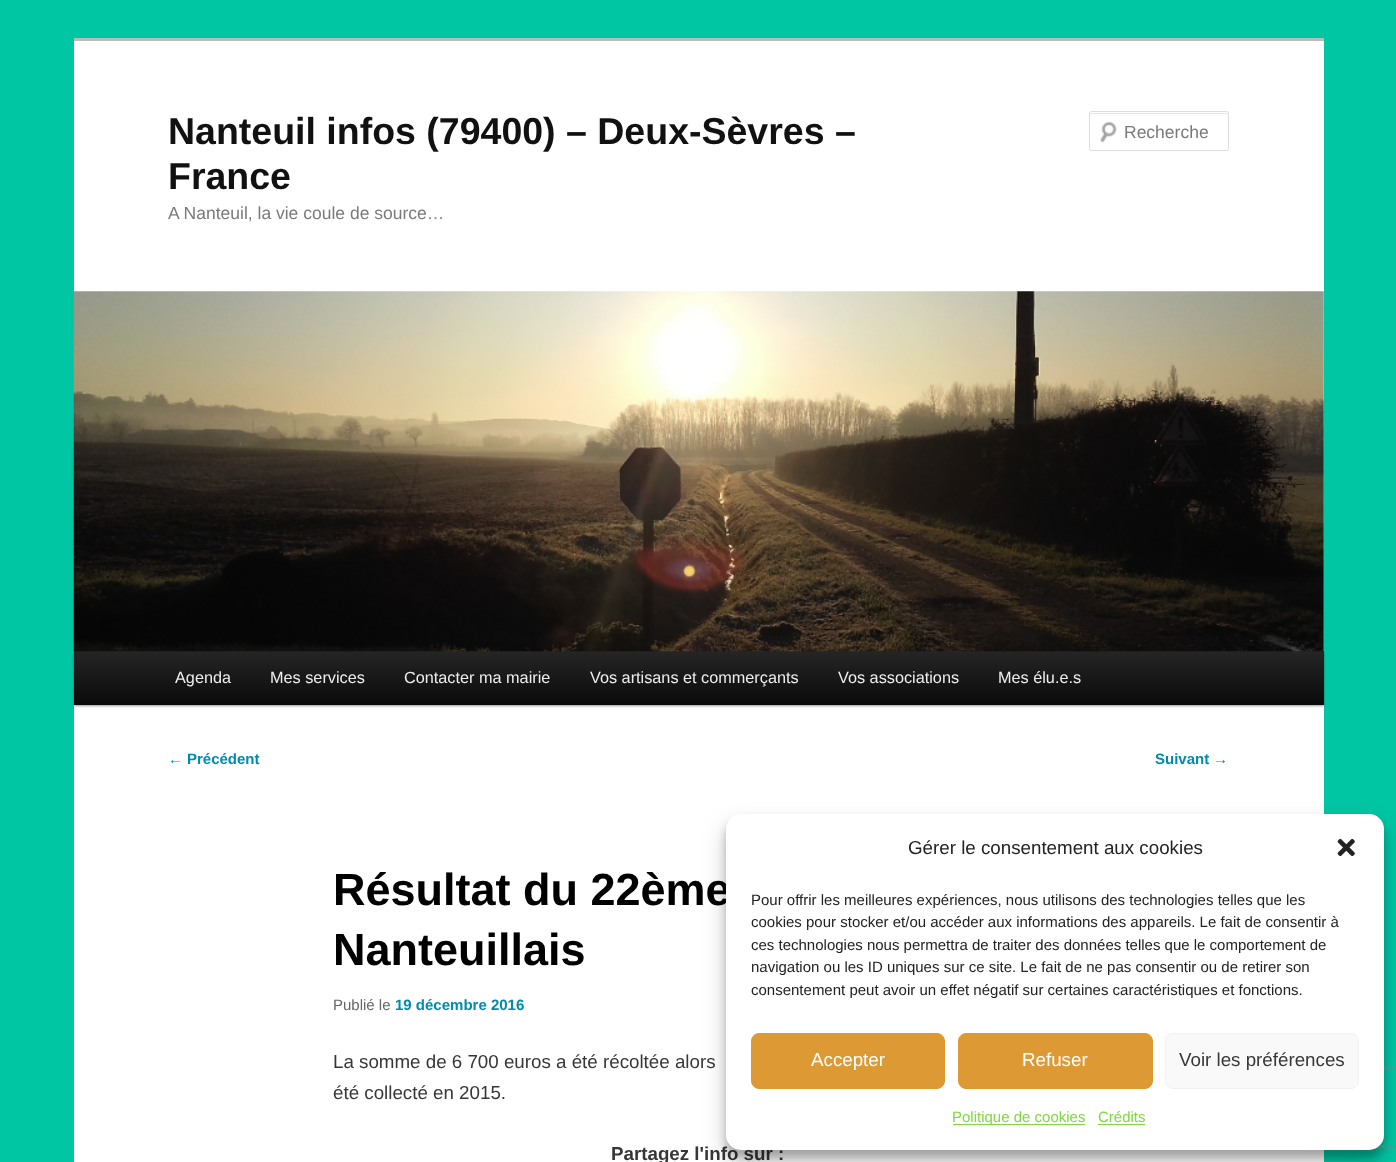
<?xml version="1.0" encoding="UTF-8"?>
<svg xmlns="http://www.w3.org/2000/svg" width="1396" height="1162">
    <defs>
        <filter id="blur1" x="-50%" y="-200%" width="200%" height="500%"><feGaussianBlur stdDeviation="1"/></filter>
        <linearGradient id="g1" gradientUnits="userSpaceOnUse" x1="699" y1="651" x2="699" y2="705"><stop offset="0" stop-color="#252525"/><stop offset="1" stop-color="#0A0A0A"/></linearGradient>
        <filter id="blur2" x="-50%" y="-200%" width="200%" height="500%"><feGaussianBlur stdDeviation="4"/></filter>
        <filter id="blur3" x="-50%" y="-200%" width="200%" height="500%"><feGaussianBlur stdDeviation="12.5"/></filter>
        <clipPath id="clip1"><path d="M 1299 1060 H 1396 V 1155 H 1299 Z M 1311.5 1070 H 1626.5 C 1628 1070 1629 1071 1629 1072.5 V 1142.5 C 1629 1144 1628 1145 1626.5 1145 H 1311.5 C 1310 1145 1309 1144 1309 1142.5 V 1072.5 C 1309 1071 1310 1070 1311.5 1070 Z" clip-rule="evenodd"/></clipPath>
        <filter id="blur4" x="-50%" y="-200%" width="200%" height="500%"><feGaussianBlur stdDeviation="3"/></filter>
    </defs>
    <rect width="100%" height="100%" fill="#00C6A3"/>
    <rect x="74" y="41" width="1250" height="1121" fill="#FFFFFF"/>
    <rect x="74" y="38" width="1250" height="3" fill="#BBBBBB"/>
    <text font-family="Liberation Sans" font-size="37.5" font-weight="700" fill="#111111">
        <tspan x="168" y="144">Nanteuil infos (79400) – Deux-Sèvres –</tspan>
        <tspan x="168" y="189">France</tspan>
    </text>
    <text x="168" y="219" font-family="Liberation Sans" font-size="17.5" fill="#7A7A7A">A Nanteuil, la vie coule de source…</text>
    <image x="1100" y="121" width="17" height="22" href="img_01.png"/>
    <path d="M 1091 114 H 1226 C 1227 114 1228 114 1228 115 C 1228 114 1228 113 1227 113 H 1091 C 1090 113 1090 114 1090 115 Z" fill="#E6E6E6"/>
    <rect x="1089.5" y="111.5" width="139" height="39" rx="2" fill="none" stroke="#DDDDDD"/>
    <text x="1124" y="138" font-family="Liberation Sans" font-size="17.5" fill="#7A7A7A">Recherche</text>
    <rect x="74" y="653" width="1250" height="53" fill="#000000" fill-opacity="0.4" filter="url(#blur1)"/>
    <rect x="74" y="651" width="1250" height="54" fill="url(#g1)"/>
    <image x="73" y="291" width="1251" height="361" href="img_02.png"/>
    <text x="175" y="683" font-family="Liberation Sans" font-size="16.25" fill="#EEEEEE">Agenda</text>
    <text x="270" y="683" font-family="Liberation Sans" font-size="16.25" fill="#EEEEEE">Mes services</text>
    <text x="404" y="683" font-family="Liberation Sans" font-size="16.25" fill="#EEEEEE">Contacter ma mairie</text>
    <text x="590" y="683" font-family="Liberation Sans" font-size="16.25" fill="#EEEEEE">Vos artisans et commerçants</text>
    <text x="838" y="683" font-family="Liberation Sans" font-size="16.25" fill="#EEEEEE">Vos associations</text>
    <text x="998" y="683" font-family="Liberation Sans" font-size="16.25" fill="#EEEEEE">Mes élu.e.s</text>
    <text x="168" y="764" font-family="Liberation Sans" font-size="15" fill="#008BAE">←</text>
    <text x="187" y="764" font-family="Liberation Sans" font-size="15" font-weight="700" fill="#008BAE">Précédent</text>
    <text x="1155" y="764" font-family="Liberation Sans" font-size="15" font-weight="700" fill="#008BAE">Suivant</text>
    <text x="1213" y="764" font-family="Liberation Sans" font-size="15" fill="#008BAE">→</text>
    <text font-family="Liberation Sans" font-size="45" font-weight="700" fill="#000000">
        <tspan x="333" y="905">Résultat du 22ème</tspan>
        <tspan x="333" y="965">Nanteuillais</tspan>
    </text>
    <text x="333" y="1010" font-family="Liberation Sans" font-size="15" fill="#666666">Publié le</text>
    <text x="395" y="1010" font-family="Liberation Sans" font-size="15" font-weight="700" fill="#008BAE">19 décembre 2016</text>
    <text font-family="Liberation Sans" font-size="18.75" fill="#373737">
        <tspan x="333" y="1068">La somme de 6 700 euros a été récoltée alors</tspan>
        <tspan x="333" y="1099">été collecté en 2015.</tspan>
    </text>
    <text x="611" y="1160" font-family="Liberation Sans" font-size="18.75" font-weight="700" fill="#373737">Partagez l'info sur :</text>
    <rect x="726" y="821" width="658" height="337" rx="15" fill="#000000" fill-opacity="0.23" filter="url(#blur2)"/>
    <rect x="726" y="826" width="658" height="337" rx="15" fill="#000000" fill-opacity="0.19" filter="url(#blur3)"/>
    <g clip-path="url(#clip1)">
        <rect x="1309" y="1070" width="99" height="75" rx="2.5" fill="#808080" filter="url(#blur4)"/>
    </g>
    <rect x="726" y="814" width="658" height="336" rx="15" fill="#FFFFFF"/>
    <text x="908" y="854" font-family="Liberation Sans" font-size="18.75" fill="#222222">Gérer le consentement aux cookies</text>
    <image x="1337" y="838" width="18" height="19" href="img_03.png"/>
    <text font-family="Liberation Sans" font-size="15" fill="#222222">
        <tspan x="751" y="905">Pour offrir les meilleures expériences, nous utilisons des technologies telles que les</tspan>
        <tspan x="751" y="927">cookies pour stocker et/ou accéder aux informations des appareils. Le fait de consentir à</tspan>
        <tspan x="751" y="950">ces technologies nous permettra de traiter des données telles que le comportement de</tspan>
        <tspan x="751" y="972">navigation ou les ID uniques sur ce site. Le fait de ne pas consentir ou de retirer son</tspan>
        <tspan x="751" y="995">consentement peut avoir un effet négatif sur certaines caractéristiques et fonctions.</tspan>
    </text>
    <rect x="751.5" y="1033.5" width="193" height="55" rx="7.5" fill="#DD9933" stroke="#DD9933"/>
    <text x="811" y="1066" font-family="Liberation Sans" font-size="18.75" fill="#FFFFFF">Accepter</text>
    <rect x="958.5" y="1033.5" width="194" height="55" rx="7.5" fill="#DD9933" stroke="#DD9933"/>
    <text x="1022" y="1066" font-family="Liberation Sans" font-size="18.75" fill="#FFFFFF">Refuser</text>
    <rect x="1165.5" y="1033.5" width="193" height="55" rx="7.5" fill="#F9F9F9" stroke="#F2F2F2"/>
    <text x="1179" y="1066" font-family="Liberation Sans" font-size="18.75" fill="#373737">Voir les préférences</text>
    <rect x="953" y="1124" width="132" height="1" fill="#81D742"/>
    <text x="952" y="1122" font-family="Liberation Sans" font-size="15" fill="#81D742">Politique de cookies</text>
    <text x="1098" y="1122" font-family="Liberation Sans" font-size="15" fill="#81D742">Crédits</text>
    <rect x="1098" y="1124" width="47" height="1" fill="#81D742"/>
</svg>
